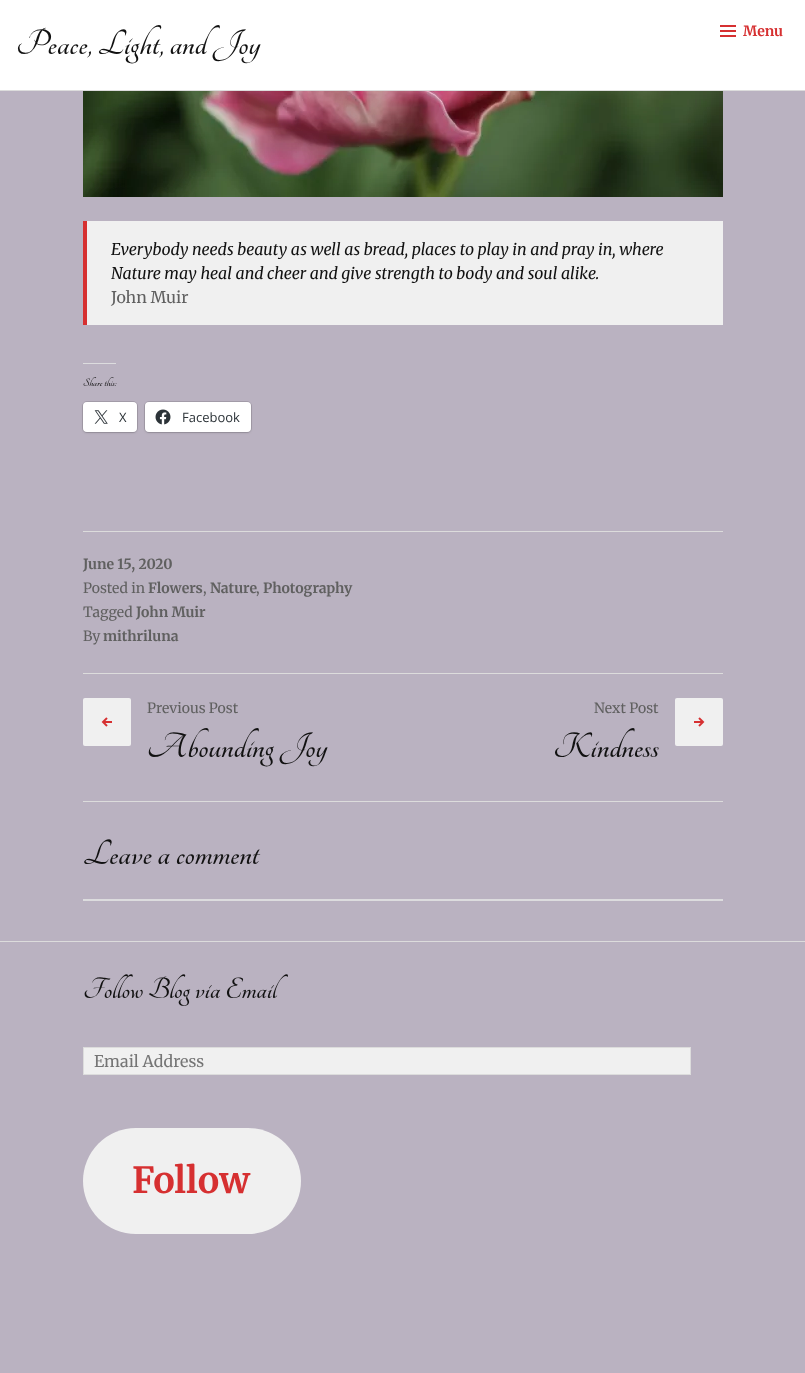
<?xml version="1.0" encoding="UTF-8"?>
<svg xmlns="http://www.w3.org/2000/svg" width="805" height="1373">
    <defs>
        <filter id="blur1" x="-50%" y="-200%" width="200%" height="500%"><feGaussianBlur stdDeviation="1"/></filter>
    </defs>
    <rect width="100%" height="100%" fill="#BAB2C1"/>
    <rect x="0" y="0" width="805" height="90" fill="#FFFFFF"/>
    <rect x="0" y="90" width="805" height="1" fill="#DCDCDC"/>
    <text x="16" y="54" font-family="Tangerine" font-size="38.5" font-weight="700" fill="#111111">Peace, Light, and Joy</text>
    <image x="720" y="25" width="16" height="12" href="img_01.png"/>
    <text x="743" y="36" font-family="Merriweather" font-size="14" font-weight="700" fill="#D63031">Menu</text>
    <image x="83" y="91" width="640" height="106" href="img_02.png"/>
    <rect x="87" y="221" width="636" height="104" fill="#F0F0F0"/>
    <rect x="83" y="221" width="4" height="104" fill="#D63031"/>
    <text font-family="Merriweather" font-size="16" font-style="italic" fill="#111111">
        <tspan x="111" y="255">Everybody needs beauty as well as bread, places to play in and pray in, where</tspan>
        <tspan x="111" y="279">Nature may heal and cheer and give strength to body and soul alike.</tspan>
    </text>
    <text x="111" y="303" font-family="Merriweather" font-size="16" fill="#606060">John Muir</text>
    <rect x="83" y="363" width="33" height="1" fill="#DCDCDE"/>
    <text x="83" y="386" font-family="Tangerine" font-size="12" font-weight="700" fill="#111111">Share this:</text>
    <rect x="82.5" y="401.5" width="55" height="31" rx="4.5" fill="none" stroke="#A49DAA"/>
    <rect x="83" y="403" width="54" height="30" rx="4" fill="#000000" fill-opacity="0.12" filter="url(#blur1)"/>
    <rect x="83" y="402" width="54" height="30" rx="4" fill="#FFFFFF"/>
    <image x="94" y="410" width="14" height="14" href="img_03.png"/>
    <text x="119" y="422" font-family="Open Sans" font-size="13" fill="#2C3338">X</text>
    <rect x="144.5" y="401.5" width="107" height="31" rx="4.5" fill="none" stroke="#A49DAA"/>
    <rect x="145" y="403" width="106" height="30" rx="4" fill="#000000" fill-opacity="0.12" filter="url(#blur1)"/>
    <rect x="145" y="402" width="106" height="30" rx="4" fill="#FFFFFF"/>
    <image x="155" y="409" width="16" height="16" href="img_04.png"/>
    <text x="182" y="422" font-family="Open Sans" font-size="13" fill="#2C3338">Facebook</text>
    <rect x="83" y="531" width="640" height="1" fill="#DCDCDC"/>
    <text x="83" y="569" font-family="Merriweather" font-size="14" font-weight="700" fill="#606060">June 15, 2020</text>
    <text x="83" y="593" font-family="Merriweather" font-size="14" fill="#606060">Posted in</text>
    <text x="148" y="593" font-family="Merriweather" font-size="14" font-weight="700" fill="#606060">Flowers</text>
    <text x="203" y="593" font-family="Merriweather" font-size="14" fill="#606060">,</text>
    <text x="210" y="593" font-family="Merriweather" font-size="14" font-weight="700" fill="#606060">Nature</text>
    <text x="256" y="593" font-family="Merriweather" font-size="14" fill="#606060">,</text>
    <text x="263" y="593" font-family="Merriweather" font-size="14" font-weight="700" fill="#606060">Photography</text>
    <text x="83" y="617" font-family="Merriweather" font-size="14" fill="#606060">Tagged</text>
    <text x="136" y="617" font-family="Merriweather" font-size="14" font-weight="700" fill="#606060">John Muir</text>
    <text x="83" y="641" font-family="Merriweather" font-size="14" fill="#606060">By</text>
    <text x="103" y="641" font-family="Merriweather" font-size="14" font-weight="700" fill="#606060">mithriluna</text>
    <rect x="83" y="673" width="640" height="1" fill="#DCDCDC"/>
    <rect x="83" y="698" width="48" height="48" rx="2" fill="#F0F0F0"/>
    <image x="101" y="717" width="11" height="10" href="img_05.png"/>
    <text x="147" y="713" font-family="Merriweather" font-size="14" fill="#606060">Previous Post</text>
    <text x="147" y="757" font-family="Tangerine" font-size="38.5" font-weight="700" fill="#111111">Abounding Joy</text>
    <text x="594" y="713" font-family="Merriweather" font-size="14" fill="#606060">Next Post</text>
    <rect x="675" y="698" width="48" height="48" rx="2" fill="#F0F0F0"/>
    <image x="694" y="717" width="11" height="10" href="img_06.png"/>
    <text x="553" y="757" font-family="Tangerine" font-size="38.5" font-weight="700" fill="#111111">Kindness</text>
    <rect x="83" y="801" width="640" height="1" fill="#DCDCDC"/>
    <text x="83" y="864" font-family="Tangerine" font-size="38.5" font-weight="700" fill="#111111">Leave a comment</text>
    <rect x="83" y="899" width="640" height="2" fill="#DCDCDE"/>
    <rect x="0" y="941" width="805" height="1" fill="#DCDCDC"/>
    <text x="83" y="998" font-family="Tangerine" font-size="32" font-weight="700" fill="#111111">Follow Blog via Email</text>
    <rect x="83.5" y="1047.5" width="607" height="27" fill="#F0F0F0" stroke="#DCDCDC"/>
    <text x="94" y="1067" font-family="Merriweather" font-size="16" fill="#757575">Email Address</text>
    <rect x="83" y="1128" width="218" height="106" rx="53" fill="#F0F0F0"/>
    <text x="132" y="1193" font-family="Merriweather" font-size="36" font-weight="700" fill="#D63031">Follow</text>
</svg>
